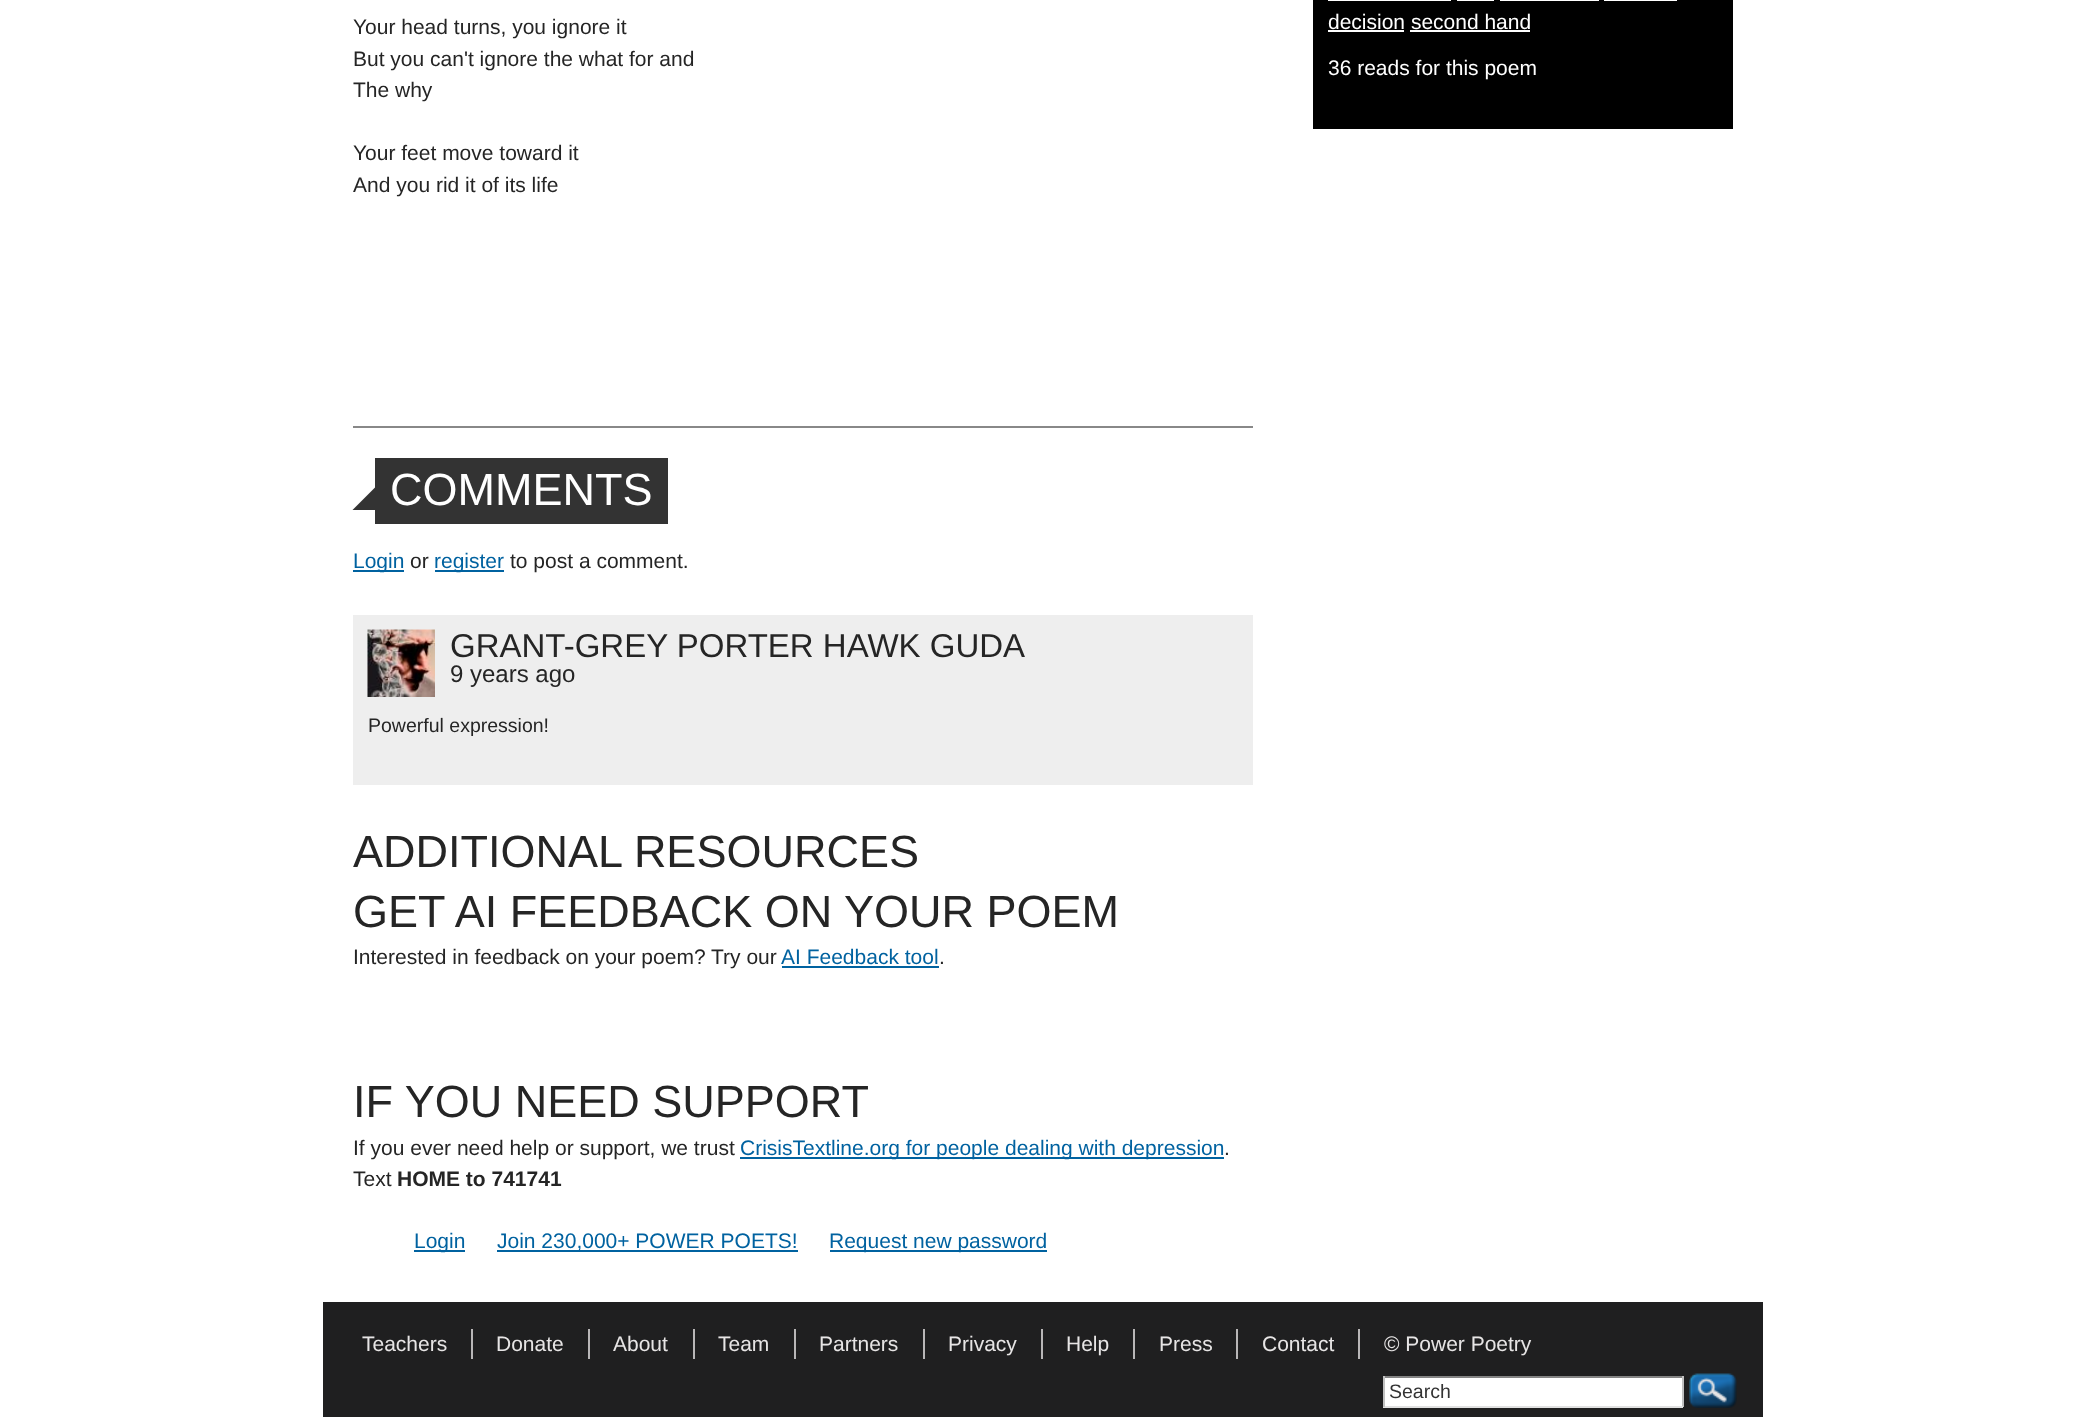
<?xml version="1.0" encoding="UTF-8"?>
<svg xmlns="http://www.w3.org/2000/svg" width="2084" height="1417">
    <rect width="100%" height="100%" fill="#FFFFFF"/>
    <text font-family="Liberation Sans" font-size="21" fill="#252525">
        <tspan x="353" y="34">Your head turns, you ignore it</tspan>
        <tspan x="353" y="66">But you can't ignore the what for and</tspan>
        <tspan x="353" y="97">The why</tspan>
    </text>
    <text font-family="Liberation Sans" font-size="21" fill="#252525">
        <tspan x="353" y="160">Your feet move toward it</tspan>
        <tspan x="353" y="192">And you rid it of its life</tspan>
    </text>
    <rect x="353" y="426" width="900" height="2" fill="#888888"/>
    <rect x="375" y="458" width="293" height="66" fill="#333333"/>
    <path d="M 375 510 H 352.5 L 375 487.5 Z" fill="#333333"/>
    <text x="390" y="505" font-family="Liberation Sans" font-size="45" fill="#FFFFFF">COMMENTS</text>
    <rect x="353" y="570" width="51" height="2" fill="#0062A0"/>
    <text x="353" y="568" font-family="Liberation Sans" font-size="21" fill="#0062A0">Login</text>
    <text x="410" y="568" font-family="Liberation Sans" font-size="21" fill="#252525">or</text>
    <rect x="435" y="570" width="69" height="2" fill="#0062A0"/>
    <text x="434" y="568" font-family="Liberation Sans" font-size="21" fill="#0062A0">register</text>
    <text x="510" y="568" font-family="Liberation Sans" font-size="21" fill="#252525">to post a comment.</text>
    <rect x="353" y="615" width="900" height="170" fill="#EEEEEE"/>
    <image x="367" y="629" width="68" height="68" href="img_01.png"/>
    <text x="450" y="657" font-family="Liberation Sans" font-size="33" fill="#252525">GRANT-GREY PORTER HAWK GUDA</text>
    <text x="450" y="682" font-family="Liberation Sans" font-size="24" fill="#252525">9 years ago</text>
    <text x="368" y="732" font-family="Liberation Sans" font-size="19.5" fill="#252525">Powerful expression!</text>
    <text font-family="Liberation Sans" font-size="45" fill="#252525">
        <tspan x="353" y="867">ADDITIONAL RESOURCES</tspan>
        <tspan x="353" y="927">GET AI FEEDBACK ON YOUR POEM</tspan>
    </text>
    <text x="353" y="964" font-family="Liberation Sans" font-size="21" fill="#252525">Interested in feedback on your poem? Try our</text>
    <text x="781" y="964" font-family="Liberation Sans" font-size="21" fill="#0062A0">AI Feedback tool</text>
    <rect x="782" y="966" width="157" height="2" fill="#0062A0"/>
    <text x="939" y="964" font-family="Liberation Sans" font-size="21" fill="#252525">.</text>
    <text x="353" y="1117" font-family="Liberation Sans" font-size="45" fill="#252525">IF YOU NEED SUPPORT</text>
    <text x="353" y="1155" font-family="Liberation Sans" font-size="21" fill="#252525">If you ever need help or support, we trust</text>
    <rect x="740" y="1157" width="484" height="2" fill="#0062A0"/>
    <text x="740" y="1155" font-family="Liberation Sans" font-size="21" fill="#0062A0">CrisisTextline.org for people dealing with depression</text>
    <text x="1224" y="1155" font-family="Liberation Sans" font-size="21" fill="#252525">.</text>
    <text x="353" y="1186" font-family="Liberation Sans" font-size="21" fill="#252525">Text</text>
    <text x="397" y="1186" font-family="Liberation Sans" font-size="21" font-weight="700" fill="#252525">HOME to 741741</text>
    <rect x="414" y="1250" width="51" height="2" fill="#0062A0"/>
    <text x="414" y="1248" font-family="Liberation Sans" font-size="21" fill="#0062A0">Login</text>
    <rect x="497" y="1250" width="301" height="2" fill="#0062A0"/>
    <text x="497" y="1248" font-family="Liberation Sans" font-size="21" fill="#0062A0">Join 230,000+ POWER POETS!</text>
    <rect x="830" y="1250" width="217" height="2" fill="#0062A0"/>
    <text x="829" y="1248" font-family="Liberation Sans" font-size="21" fill="#0062A0">Request new password</text>
    <rect x="1313" y="0" width="420" height="129" fill="#000000"/>
    <rect x="1328" y="0" width="123" height="1" fill="#FFFFFF"/>
    <rect x="1457" y="0" width="37" height="1" fill="#FFFFFF"/>
    <rect x="1500" y="0" width="99" height="1" fill="#FFFFFF"/>
    <rect x="1604" y="0" width="73" height="1" fill="#FFFFFF"/>
    <text x="1328" y="29" font-family="Liberation Sans" font-size="21" fill="#FFFFFF">decision second hand</text>
    <rect x="1328" y="30" width="76" height="2" fill="#FFFFFF"/>
    <rect x="1410" y="30" width="120" height="2" fill="#FFFFFF"/>
    <text x="1328" y="75" font-family="Liberation Sans" font-size="21" fill="#FFFFFF">36 reads for this poem</text>
    <rect x="323" y="1302" width="1440" height="115" fill="#1F1F20"/>
    <rect x="471" y="1329" width="2" height="30" fill="#B8B6B7"/>
    <text x="362" y="1351" font-family="Liberation Sans" font-size="21" fill="#E7E5E5">Teachers</text>
    <rect x="588" y="1329" width="2" height="30" fill="#B8B6B7"/>
    <text x="496" y="1351" font-family="Liberation Sans" font-size="21" fill="#E7E5E5">Donate</text>
    <rect x="693" y="1329" width="2" height="30" fill="#B8B6B7"/>
    <text x="613" y="1351" font-family="Liberation Sans" font-size="21" fill="#E7E5E5">About</text>
    <rect x="794" y="1329" width="2" height="30" fill="#B8B6B7"/>
    <text x="718" y="1351" font-family="Liberation Sans" font-size="21" fill="#E7E5E5">Team</text>
    <rect x="923" y="1329" width="2" height="30" fill="#B8B6B7"/>
    <text x="819" y="1351" font-family="Liberation Sans" font-size="21" fill="#E7E5E5">Partners</text>
    <rect x="1041" y="1329" width="2" height="30" fill="#B8B6B7"/>
    <text x="948" y="1351" font-family="Liberation Sans" font-size="21" fill="#E7E5E5">Privacy</text>
    <rect x="1133" y="1329" width="2" height="30" fill="#B8B6B7"/>
    <text x="1066" y="1351" font-family="Liberation Sans" font-size="21" fill="#E7E5E5">Help</text>
    <rect x="1236" y="1329" width="2" height="30" fill="#B8B6B7"/>
    <text x="1159" y="1351" font-family="Liberation Sans" font-size="21" fill="#E7E5E5">Press</text>
    <rect x="1358" y="1329" width="2" height="30" fill="#B8B6B7"/>
    <text x="1262" y="1351" font-family="Liberation Sans" font-size="21" fill="#E7E5E5">Contact</text>
    <text x="1384" y="1351" font-family="Liberation Sans" font-size="21" fill="#E7E5E5">© Power Poetry</text>
    <rect x="1385" y="1378" width="297" height="28" fill="#FFFFFF"/>
    <rect x="1383" y="1376" width="300" height="2" fill="#848484"/>
    <rect x="1682" y="1376" width="2" height="31" fill="#C1C1C1"/>
    <rect x="1383" y="1406" width="300" height="2" fill="#E1E1E1"/>
    <rect x="1383" y="1376" width="2" height="31" fill="#C1C1C1"/>
    <text x="1389" y="1398" font-family="Liberation Sans" font-size="19.5" fill="#333333">Search</text>
    <image x="1689" y="1373" width="48" height="35" href="img_02.png"/>
</svg>
